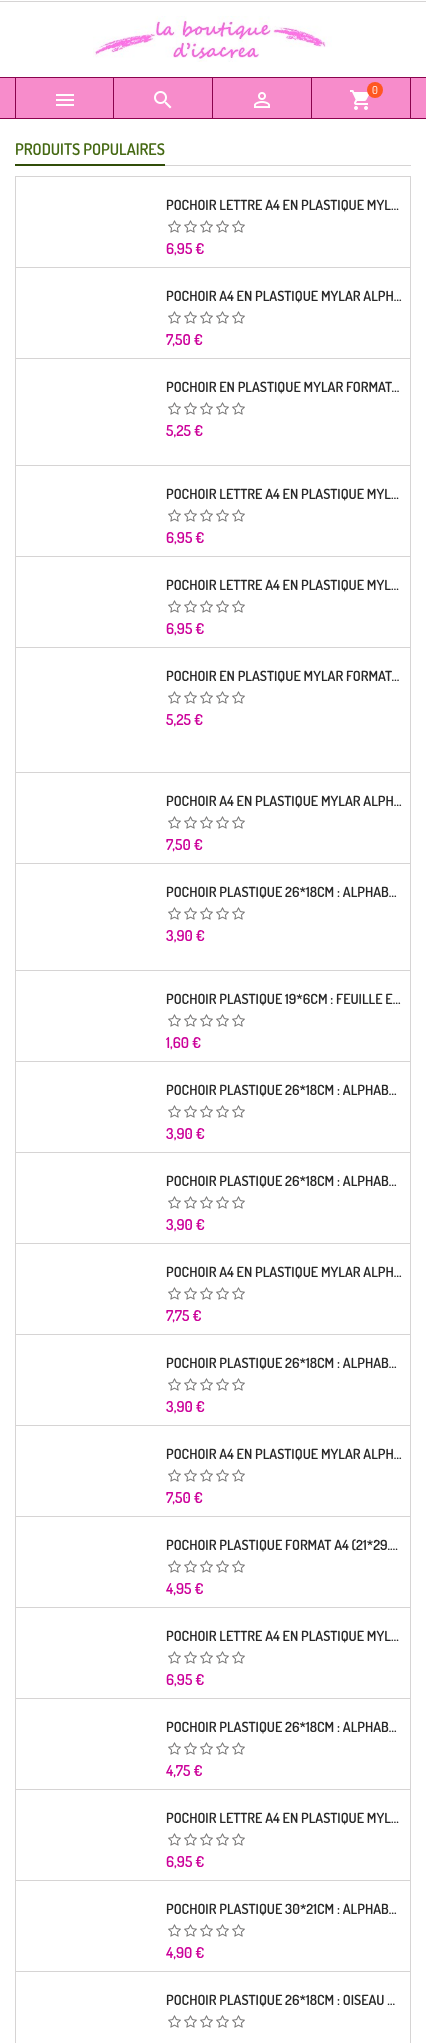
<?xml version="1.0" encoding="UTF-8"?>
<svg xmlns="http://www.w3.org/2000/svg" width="426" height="2043">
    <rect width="100%" height="100%" fill="#FFFFFF"/>
    <rect x="0" y="1" width="426" height="1" fill="#D6D4D4"/>
    <image x="93" y="16" width="239" height="46" href="img_01.png"/>
    <rect x="0" y="78" width="426" height="40" fill="#F78CCB"/>
    <rect x="0" y="77" width="426" height="1" fill="#8A034D"/>
    <rect x="0" y="118" width="426" height="1" fill="#8A034D"/>
    <rect x="113" y="78" width="1" height="40" fill="#8A034D"/>
    <rect x="15" y="78" width="1" height="40" fill="#8A034D"/>
    <image x="56" y="94" width="18" height="12" href="img_02.png"/>
    <rect x="212" y="78" width="1" height="40" fill="#8A034D"/>
    <image x="154" y="91" width="18" height="18" href="img_03.png"/>
    <rect x="311" y="78" width="1" height="40" fill="#8A034D"/>
    <image x="254" y="92" width="16" height="16" href="img_04.png"/>
    <rect x="410" y="78" width="1" height="40" fill="#8A034D"/>
    <image x="350" y="90" width="19" height="20" href="img_05.png"/>
    <circle cx="375" cy="90" r="8" fill="#FF5722"/>
    <text x="372" y="94" font-family="Dosis" font-size="11" fill="#FFFFFF">0</text>
    <rect x="165" y="165" width="246" height="1" fill="#D6D4D4"/>
    <rect x="15" y="164" width="150" height="2" fill="#314D09"/>
    <text x="15" y="155" font-family="Dosis" font-size="16" font-weight="600" fill="#456913">PRODUITS POPULAIRES</text>
    <rect x="15.5" y="176.5" width="395" height="91" fill="none" stroke="#D6D4D4"/>
    <text x="166" y="210" font-family="Dosis" font-size="14" font-weight="600" fill="#282828">POCHOIR LETTRE A4 EN PLASTIQUE MYL…</text>
    <image x="168" y="220" width="13" height="13" href="img_06.png"/>
    <image x="184" y="220" width="13" height="13" href="img_06.png"/>
    <image x="200" y="220" width="13" height="13" href="img_06.png"/>
    <image x="216" y="220" width="13" height="13" href="img_06.png"/>
    <image x="232" y="220" width="13" height="13" href="img_06.png"/>
    <text x="166" y="254" font-family="Dosis" font-size="15" font-weight="600" fill="#CC029A">6,95 €</text>
    <rect x="410" y="268" width="1" height="1775" fill="#D6D4D4"/>
    <rect x="15" y="358" width="396" height="1" fill="#D6D4D4"/>
    <rect x="15" y="268" width="1" height="91" fill="#D6D4D4"/>
    <text x="166" y="301" font-family="Dosis" font-size="14" font-weight="600" fill="#282828">POCHOIR A4 EN PLASTIQUE MYLAR ALPH…</text>
    <image x="168" y="311" width="13" height="13" href="img_06.png"/>
    <image x="184" y="311" width="13" height="13" href="img_06.png"/>
    <image x="200" y="311" width="13" height="13" href="img_06.png"/>
    <image x="216" y="311" width="13" height="13" href="img_06.png"/>
    <image x="232" y="311" width="13" height="13" href="img_06.png"/>
    <text x="166" y="345" font-family="Dosis" font-size="15" font-weight="600" fill="#CC029A">7,50 €</text>
    <rect x="15" y="465" width="396" height="1" fill="#D6D4D4"/>
    <rect x="15" y="359" width="1" height="107" fill="#D6D4D4"/>
    <text x="166" y="392" font-family="Dosis" font-size="14" font-weight="600" fill="#282828">POCHOIR EN PLASTIQUE MYLAR FORMAT…</text>
    <image x="168" y="402" width="13" height="13" href="img_06.png"/>
    <image x="184" y="402" width="13" height="13" href="img_06.png"/>
    <image x="200" y="402" width="13" height="13" href="img_06.png"/>
    <image x="216" y="402" width="13" height="13" href="img_06.png"/>
    <image x="232" y="402" width="13" height="13" href="img_06.png"/>
    <text x="166" y="436" font-family="Dosis" font-size="15" font-weight="600" fill="#CC029A">5,25 €</text>
    <rect x="15" y="556" width="396" height="1" fill="#D6D4D4"/>
    <rect x="15" y="466" width="1" height="91" fill="#D6D4D4"/>
    <text x="166" y="499" font-family="Dosis" font-size="14" font-weight="600" fill="#282828">POCHOIR LETTRE A4 EN PLASTIQUE MYL…</text>
    <image x="168" y="509" width="13" height="13" href="img_06.png"/>
    <image x="184" y="509" width="13" height="13" href="img_06.png"/>
    <image x="200" y="509" width="13" height="13" href="img_06.png"/>
    <image x="216" y="509" width="13" height="13" href="img_06.png"/>
    <image x="232" y="509" width="13" height="13" href="img_06.png"/>
    <text x="166" y="543" font-family="Dosis" font-size="15" font-weight="600" fill="#CC029A">6,95 €</text>
    <rect x="15" y="647" width="396" height="1" fill="#D6D4D4"/>
    <rect x="15" y="557" width="1" height="91" fill="#D6D4D4"/>
    <text x="166" y="590" font-family="Dosis" font-size="14" font-weight="600" fill="#282828">POCHOIR LETTRE A4 EN PLASTIQUE MYL…</text>
    <image x="168" y="600" width="13" height="13" href="img_06.png"/>
    <image x="184" y="600" width="13" height="13" href="img_06.png"/>
    <image x="200" y="600" width="13" height="13" href="img_06.png"/>
    <image x="216" y="600" width="13" height="13" href="img_06.png"/>
    <image x="232" y="600" width="13" height="13" href="img_06.png"/>
    <text x="166" y="634" font-family="Dosis" font-size="15" font-weight="600" fill="#CC029A">6,95 €</text>
    <rect x="15" y="772" width="396" height="1" fill="#D6D4D4"/>
    <rect x="15" y="648" width="1" height="125" fill="#D6D4D4"/>
    <text x="166" y="681" font-family="Dosis" font-size="14" font-weight="600" fill="#282828">POCHOIR EN PLASTIQUE MYLAR FORMAT…</text>
    <image x="168" y="691" width="13" height="13" href="img_06.png"/>
    <image x="184" y="691" width="13" height="13" href="img_06.png"/>
    <image x="200" y="691" width="13" height="13" href="img_06.png"/>
    <image x="216" y="691" width="13" height="13" href="img_06.png"/>
    <image x="232" y="691" width="13" height="13" href="img_06.png"/>
    <text x="166" y="725" font-family="Dosis" font-size="15" font-weight="600" fill="#CC029A">5,25 €</text>
    <rect x="15" y="863" width="396" height="1" fill="#D6D4D4"/>
    <rect x="15" y="773" width="1" height="91" fill="#D6D4D4"/>
    <text x="166" y="806" font-family="Dosis" font-size="14" font-weight="600" fill="#282828">POCHOIR A4 EN PLASTIQUE MYLAR ALPH…</text>
    <image x="168" y="816" width="13" height="13" href="img_06.png"/>
    <image x="184" y="816" width="13" height="13" href="img_06.png"/>
    <image x="200" y="816" width="13" height="13" href="img_06.png"/>
    <image x="216" y="816" width="13" height="13" href="img_06.png"/>
    <image x="232" y="816" width="13" height="13" href="img_06.png"/>
    <text x="166" y="850" font-family="Dosis" font-size="15" font-weight="600" fill="#CC029A">7,50 €</text>
    <rect x="15" y="970" width="396" height="1" fill="#D6D4D4"/>
    <rect x="15" y="864" width="1" height="107" fill="#D6D4D4"/>
    <text x="166" y="897" font-family="Dosis" font-size="14" font-weight="600" fill="#282828">POCHOIR PLASTIQUE 26*18CM : ALPHAB…</text>
    <image x="168" y="907" width="13" height="13" href="img_06.png"/>
    <image x="184" y="907" width="13" height="13" href="img_06.png"/>
    <image x="200" y="907" width="13" height="13" href="img_06.png"/>
    <image x="216" y="907" width="13" height="13" href="img_06.png"/>
    <image x="232" y="907" width="13" height="13" href="img_06.png"/>
    <text x="166" y="941" font-family="Dosis" font-size="15" font-weight="600" fill="#CC029A">3,90 €</text>
    <rect x="15" y="1061" width="396" height="1" fill="#D6D4D4"/>
    <rect x="15" y="971" width="1" height="91" fill="#D6D4D4"/>
    <text x="166" y="1004" font-family="Dosis" font-size="14" font-weight="600" fill="#282828">POCHOIR PLASTIQUE 19*6CM : FEUILLE E…</text>
    <image x="168" y="1014" width="13" height="13" href="img_06.png"/>
    <image x="184" y="1014" width="13" height="13" href="img_06.png"/>
    <image x="200" y="1014" width="13" height="13" href="img_06.png"/>
    <image x="216" y="1014" width="13" height="13" href="img_06.png"/>
    <image x="232" y="1014" width="13" height="13" href="img_06.png"/>
    <text x="166" y="1048" font-family="Dosis" font-size="15" font-weight="600" fill="#CC029A">1,60 €</text>
    <rect x="15" y="1152" width="396" height="1" fill="#D6D4D4"/>
    <rect x="15" y="1062" width="1" height="91" fill="#D6D4D4"/>
    <text x="166" y="1095" font-family="Dosis" font-size="14" font-weight="600" fill="#282828">POCHOIR PLASTIQUE 26*18CM : ALPHAB…</text>
    <image x="168" y="1105" width="13" height="13" href="img_06.png"/>
    <image x="184" y="1105" width="13" height="13" href="img_06.png"/>
    <image x="200" y="1105" width="13" height="13" href="img_06.png"/>
    <image x="216" y="1105" width="13" height="13" href="img_06.png"/>
    <image x="232" y="1105" width="13" height="13" href="img_06.png"/>
    <text x="166" y="1139" font-family="Dosis" font-size="15" font-weight="600" fill="#CC029A">3,90 €</text>
    <rect x="15" y="1243" width="396" height="1" fill="#D6D4D4"/>
    <rect x="15" y="1153" width="1" height="91" fill="#D6D4D4"/>
    <text x="166" y="1186" font-family="Dosis" font-size="14" font-weight="600" fill="#282828">POCHOIR PLASTIQUE 26*18CM : ALPHAB…</text>
    <image x="168" y="1196" width="13" height="13" href="img_06.png"/>
    <image x="184" y="1196" width="13" height="13" href="img_06.png"/>
    <image x="200" y="1196" width="13" height="13" href="img_06.png"/>
    <image x="216" y="1196" width="13" height="13" href="img_06.png"/>
    <image x="232" y="1196" width="13" height="13" href="img_06.png"/>
    <text x="166" y="1230" font-family="Dosis" font-size="15" font-weight="600" fill="#CC029A">3,90 €</text>
    <rect x="15" y="1334" width="396" height="1" fill="#D6D4D4"/>
    <rect x="15" y="1244" width="1" height="91" fill="#D6D4D4"/>
    <text x="166" y="1277" font-family="Dosis" font-size="14" font-weight="600" fill="#282828">POCHOIR A4 EN PLASTIQUE MYLAR ALPH…</text>
    <image x="168" y="1287" width="13" height="13" href="img_06.png"/>
    <image x="184" y="1287" width="13" height="13" href="img_06.png"/>
    <image x="200" y="1287" width="13" height="13" href="img_06.png"/>
    <image x="216" y="1287" width="13" height="13" href="img_06.png"/>
    <image x="232" y="1287" width="13" height="13" href="img_06.png"/>
    <text x="166" y="1321" font-family="Dosis" font-size="15" font-weight="600" fill="#CC029A">7,75 €</text>
    <rect x="15" y="1425" width="396" height="1" fill="#D6D4D4"/>
    <rect x="15" y="1335" width="1" height="91" fill="#D6D4D4"/>
    <text x="166" y="1368" font-family="Dosis" font-size="14" font-weight="600" fill="#282828">POCHOIR PLASTIQUE 26*18CM : ALPHAB…</text>
    <image x="168" y="1378" width="13" height="13" href="img_06.png"/>
    <image x="184" y="1378" width="13" height="13" href="img_06.png"/>
    <image x="200" y="1378" width="13" height="13" href="img_06.png"/>
    <image x="216" y="1378" width="13" height="13" href="img_06.png"/>
    <image x="232" y="1378" width="13" height="13" href="img_06.png"/>
    <text x="166" y="1412" font-family="Dosis" font-size="15" font-weight="600" fill="#CC029A">3,90 €</text>
    <rect x="15" y="1516" width="396" height="1" fill="#D6D4D4"/>
    <rect x="15" y="1426" width="1" height="91" fill="#D6D4D4"/>
    <text x="166" y="1459" font-family="Dosis" font-size="14" font-weight="600" fill="#282828">POCHOIR A4 EN PLASTIQUE MYLAR ALPH…</text>
    <image x="168" y="1469" width="13" height="13" href="img_06.png"/>
    <image x="184" y="1469" width="13" height="13" href="img_06.png"/>
    <image x="200" y="1469" width="13" height="13" href="img_06.png"/>
    <image x="216" y="1469" width="13" height="13" href="img_06.png"/>
    <image x="232" y="1469" width="13" height="13" href="img_06.png"/>
    <text x="166" y="1503" font-family="Dosis" font-size="15" font-weight="600" fill="#CC029A">7,50 €</text>
    <rect x="15" y="1607" width="396" height="1" fill="#D6D4D4"/>
    <rect x="15" y="1517" width="1" height="91" fill="#D6D4D4"/>
    <text x="166" y="1550" font-family="Dosis" font-size="14" font-weight="600" fill="#282828">POCHOIR PLASTIQUE FORMAT A4 (21*29.…</text>
    <image x="168" y="1560" width="13" height="13" href="img_06.png"/>
    <image x="184" y="1560" width="13" height="13" href="img_06.png"/>
    <image x="200" y="1560" width="13" height="13" href="img_06.png"/>
    <image x="216" y="1560" width="13" height="13" href="img_06.png"/>
    <image x="232" y="1560" width="13" height="13" href="img_06.png"/>
    <text x="166" y="1594" font-family="Dosis" font-size="15" font-weight="600" fill="#CC029A">4,95 €</text>
    <rect x="15" y="1698" width="396" height="1" fill="#D6D4D4"/>
    <rect x="15" y="1608" width="1" height="91" fill="#D6D4D4"/>
    <text x="166" y="1641" font-family="Dosis" font-size="14" font-weight="600" fill="#282828">POCHOIR LETTRE A4 EN PLASTIQUE MYL…</text>
    <image x="168" y="1651" width="13" height="13" href="img_06.png"/>
    <image x="184" y="1651" width="13" height="13" href="img_06.png"/>
    <image x="200" y="1651" width="13" height="13" href="img_06.png"/>
    <image x="216" y="1651" width="13" height="13" href="img_06.png"/>
    <image x="232" y="1651" width="13" height="13" href="img_06.png"/>
    <text x="166" y="1685" font-family="Dosis" font-size="15" font-weight="600" fill="#CC029A">6,95 €</text>
    <rect x="15" y="1789" width="396" height="1" fill="#D6D4D4"/>
    <rect x="15" y="1699" width="1" height="91" fill="#D6D4D4"/>
    <text x="166" y="1732" font-family="Dosis" font-size="14" font-weight="600" fill="#282828">POCHOIR PLASTIQUE 26*18CM : ALPHAB…</text>
    <image x="168" y="1742" width="13" height="13" href="img_06.png"/>
    <image x="184" y="1742" width="13" height="13" href="img_06.png"/>
    <image x="200" y="1742" width="13" height="13" href="img_06.png"/>
    <image x="216" y="1742" width="13" height="13" href="img_06.png"/>
    <image x="232" y="1742" width="13" height="13" href="img_06.png"/>
    <text x="166" y="1776" font-family="Dosis" font-size="15" font-weight="600" fill="#CC029A">4,75 €</text>
    <rect x="15" y="1880" width="396" height="1" fill="#D6D4D4"/>
    <rect x="15" y="1790" width="1" height="91" fill="#D6D4D4"/>
    <text x="166" y="1823" font-family="Dosis" font-size="14" font-weight="600" fill="#282828">POCHOIR LETTRE A4 EN PLASTIQUE MYL…</text>
    <image x="168" y="1833" width="13" height="13" href="img_06.png"/>
    <image x="184" y="1833" width="13" height="13" href="img_06.png"/>
    <image x="200" y="1833" width="13" height="13" href="img_06.png"/>
    <image x="216" y="1833" width="13" height="13" href="img_06.png"/>
    <image x="232" y="1833" width="13" height="13" href="img_06.png"/>
    <text x="166" y="1867" font-family="Dosis" font-size="15" font-weight="600" fill="#CC029A">6,95 €</text>
    <rect x="15" y="1971" width="396" height="1" fill="#D6D4D4"/>
    <rect x="15" y="1881" width="1" height="162" fill="#D6D4D4"/>
    <text x="166" y="1914" font-family="Dosis" font-size="14" font-weight="600" fill="#282828">POCHOIR PLASTIQUE 30*21CM : ALPHAB…</text>
    <image x="168" y="1924" width="13" height="13" href="img_06.png"/>
    <image x="184" y="1924" width="13" height="13" href="img_06.png"/>
    <image x="200" y="1924" width="13" height="13" href="img_06.png"/>
    <image x="216" y="1924" width="13" height="13" href="img_06.png"/>
    <image x="232" y="1924" width="13" height="13" href="img_06.png"/>
    <text x="166" y="1958" font-family="Dosis" font-size="15" font-weight="600" fill="#CC029A">4,90 €</text>
    <text x="166" y="2005" font-family="Dosis" font-size="14" font-weight="600" fill="#282828">POCHOIR PLASTIQUE 26*18CM : OISEAU …</text>
    <image x="168" y="2015" width="13" height="13" href="img_06.png"/>
    <image x="184" y="2015" width="13" height="13" href="img_06.png"/>
    <image x="200" y="2015" width="13" height="13" href="img_06.png"/>
    <image x="216" y="2015" width="13" height="13" href="img_06.png"/>
    <image x="232" y="2015" width="13" height="13" href="img_06.png"/>
</svg>
